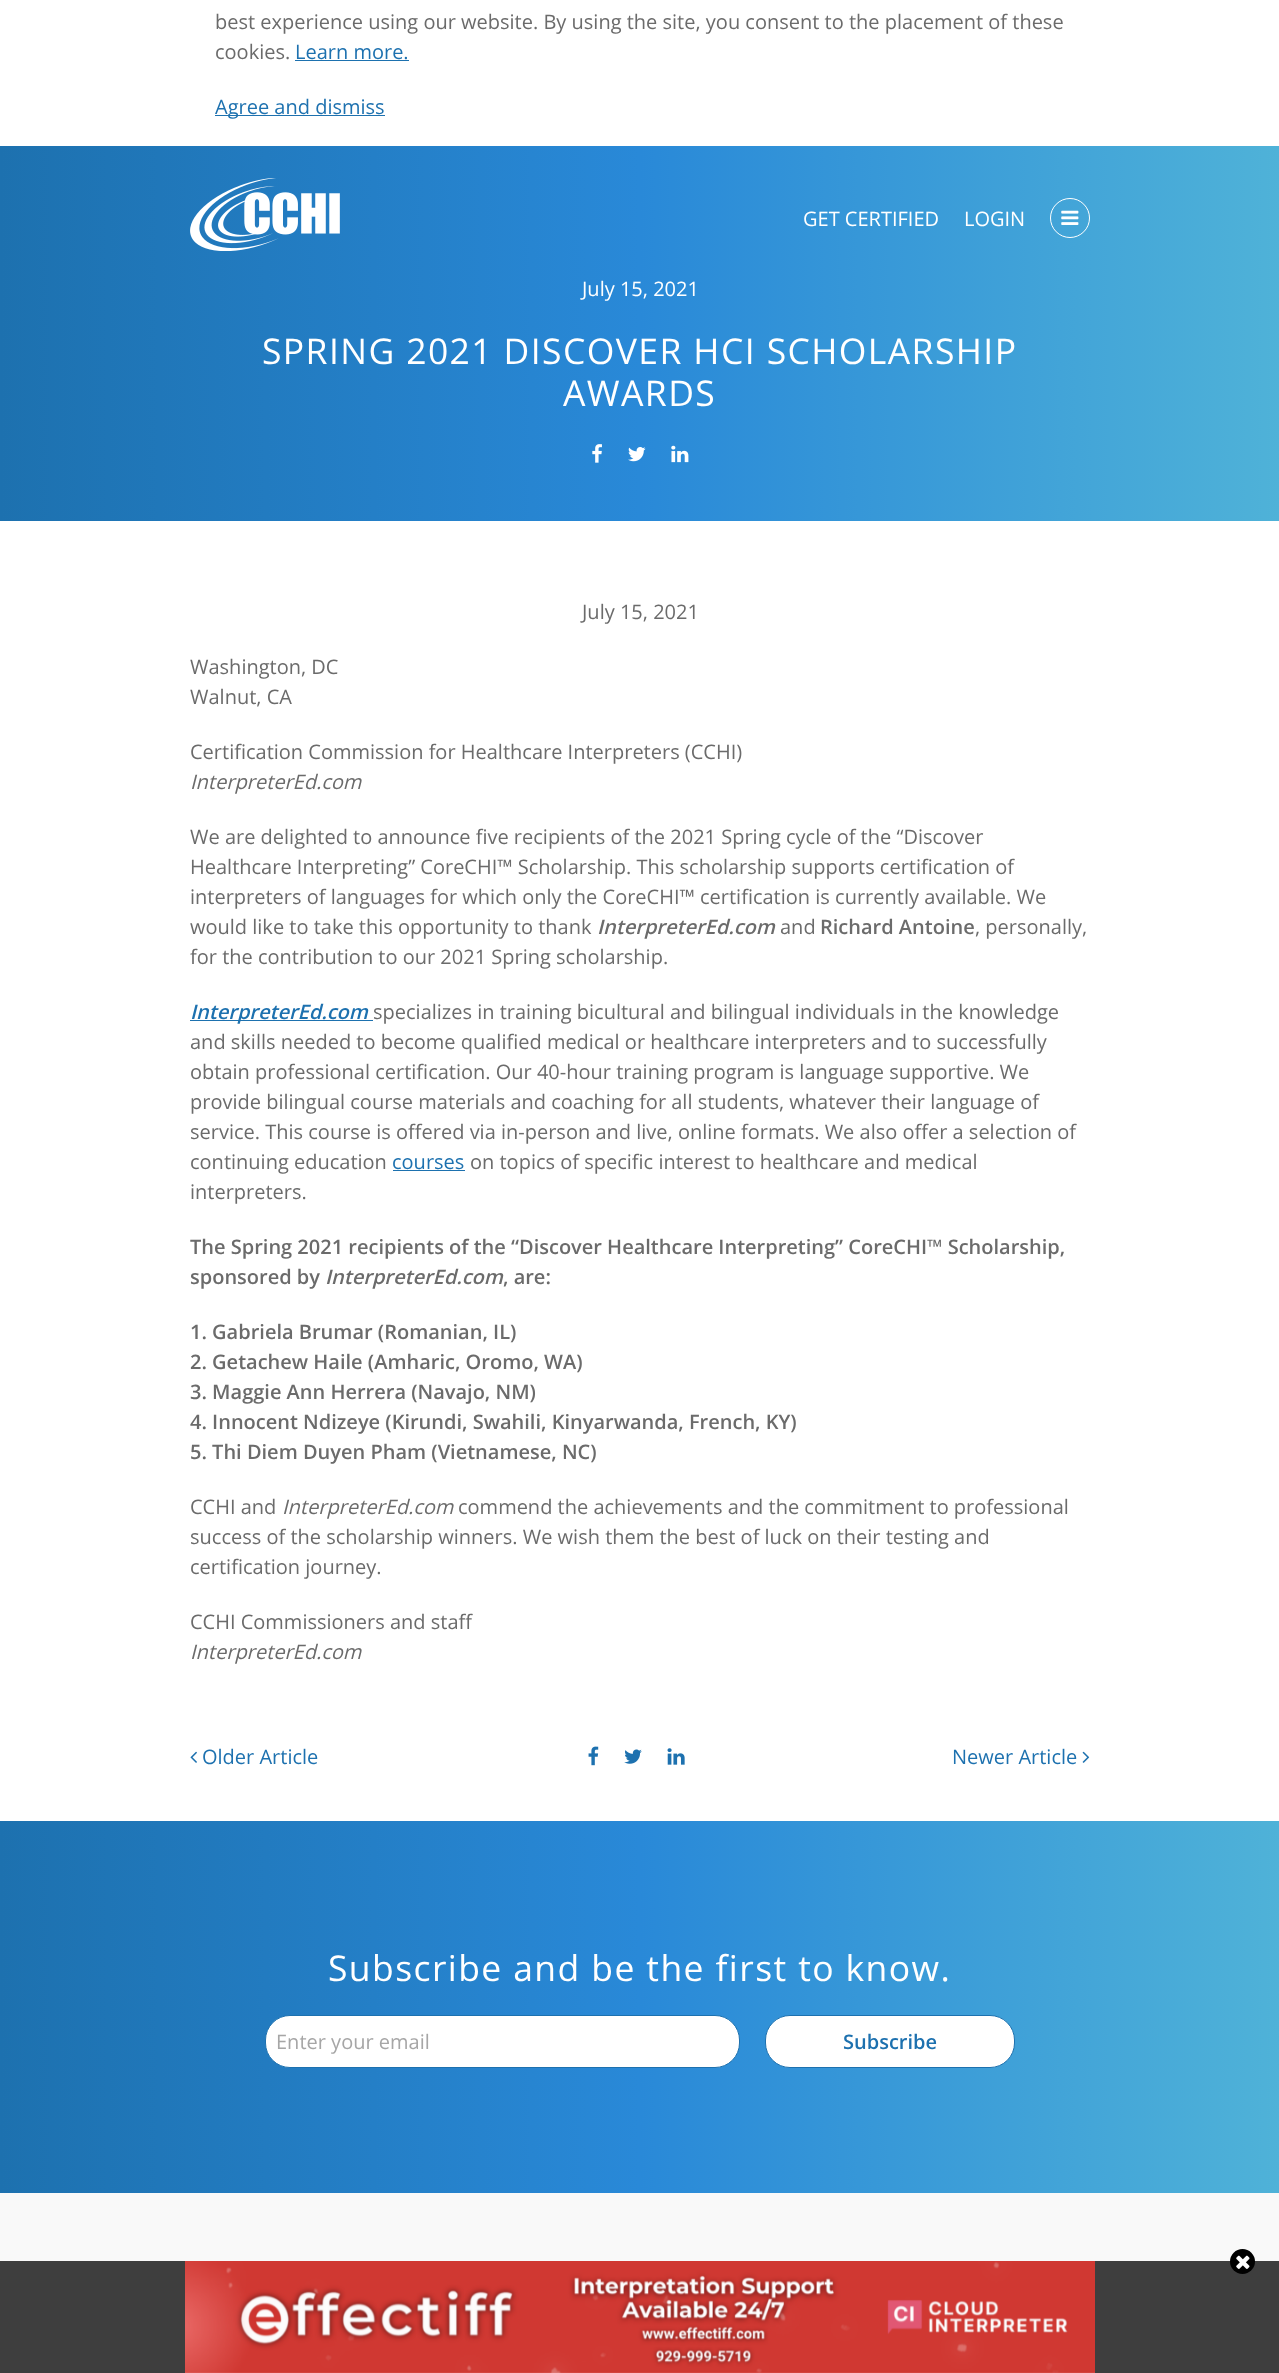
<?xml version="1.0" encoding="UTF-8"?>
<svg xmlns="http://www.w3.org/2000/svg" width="1279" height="2373">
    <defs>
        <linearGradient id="g1" gradientUnits="userSpaceOnUse" x1="0" y1="334" x2="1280" y2="334"><stop offset="0" stop-color="#1D71AF"/><stop offset="0.5" stop-color="#2989D8"/><stop offset="1" stop-color="#4FB2D8"/></linearGradient>
        <linearGradient id="g2" gradientUnits="userSpaceOnUse" x1="0" y1="2007" x2="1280" y2="2007"><stop offset="0" stop-color="#1D71AF"/><stop offset="0.5" stop-color="#2989D8"/><stop offset="1" stop-color="#4FB2D8"/></linearGradient>
    </defs>
    <rect width="100%" height="100%" fill="#FFFFFF"/>
    <text font-family="Open Sans" font-size="20" fill="#6B6B6B">
        <tspan x="215" y="29">best experience using our website. By using the site, you consent to the placement of these</tspan>
        <tspan x="215" y="59">cookies.</tspan>
    </text>
    <text x="295" y="59" font-family="Open Sans" font-size="20" fill="#1D71AF">Learn more.</text>
    <rect x="295" y="60" width="114" height="1" fill="#1D71AF"/>
    <rect x="215" y="115" width="170" height="1" fill="#1D71AF"/>
    <text x="215" y="114" font-family="Open Sans" font-size="20" fill="#1D71AF">Agree and dismiss</text>
    <rect x="0" y="146" width="1279" height="375" fill="url(#g1)"/>
    <image x="190" y="178" width="150" height="73" href="img_01.png"/>
    <text x="803" y="226" font-family="Open Sans" font-size="20" fill="#FFFFFF">GET CERTIFIED</text>
    <text x="964" y="226" font-family="Open Sans" font-size="20" fill="#FFFFFF">LOGIN</text>
    <circle cx="1070" cy="218" r="19.5" fill="none" stroke="#FFFFFF"/>
    <image x="1061" y="210" width="18" height="15" href="img_02.png"/>
    <text x="582" y="296" font-family="Open Sans" font-size="20" fill="#FFFFFF">July 15, 2021</text>
    <text x="262" y="364" font-family="Open Sans" font-size="35.5" letter-spacing="1.4" fill="#FFFFFF">SPRING 2021 DISCOVER HCI SCHOLARSHIP</text>
    <text x="563" y="406" font-family="Open Sans" font-size="35.5" letter-spacing="1.4" fill="#FFFFFF">AWARDS</text>
    <image x="592" y="444" width="10" height="19" href="img_03.png"/>
    <image x="628" y="447" width="18" height="15" href="img_04.png"/>
    <image x="671" y="445" width="18" height="18" href="img_05.png"/>
    <text x="582" y="619" font-family="Open Sans" font-size="20" fill="#6B6B6B">July 15, 2021</text>
    <text font-family="Open Sans" font-size="20" fill="#6B6B6B">
        <tspan x="190" y="674">Washington, DC</tspan>
        <tspan x="190" y="704">Walnut, CA</tspan>
    </text>
    <text x="190" y="759" font-family="Open Sans" font-size="20" fill="#6B6B6B">Certification Commission for Healthcare Interpreters (CCHI)</text>
    <text x="190" y="789" font-family="Open Sans" font-size="20" font-style="italic" fill="#6B6B6B">InterpreterEd.com</text>
    <text font-family="Open Sans" font-size="20" fill="#6B6B6B">
        <tspan x="190" y="844">We are delighted to announce five recipients of the 2021 Spring cycle of the “Discover</tspan>
        <tspan x="190" y="874">Healthcare Interpreting” CoreCHI™ Scholarship. This scholarship supports certification of</tspan>
        <tspan x="190" y="904">interpreters of languages for which only the CoreCHI™ certification is currently available. We</tspan>
        <tspan x="190" y="934">would like to take this opportunity to thank</tspan>
    </text>
    <text x="597" y="934" font-family="Open Sans" font-size="20" font-weight="600" font-style="italic" fill="#6B6B6B">InterpreterEd.com</text>
    <text x="780" y="934" font-family="Open Sans" font-size="20" fill="#6B6B6B">and</text>
    <text x="820" y="934" font-family="Open Sans" font-size="20" font-weight="600" fill="#6B6B6B">Richard Antoine</text>
    <text x="975" y="934" font-family="Open Sans" font-size="20" fill="#6B6B6B">, personally,</text>
    <text x="190" y="964" font-family="Open Sans" font-size="20" fill="#6B6B6B">for the contribution to our 2021 Spring scholarship.</text>
    <rect x="190" y="1020" width="178" height="1" fill="#1D71AF"/>
    <text x="190" y="1019" font-family="Open Sans" font-size="20" font-weight="600" font-style="italic" fill="#1D71AF">InterpreterEd.com</text>
    <rect x="368" y="1020" width="5" height="1" fill="#1D71AF"/>
    <text x="373" y="1019" font-family="Open Sans" font-size="20" fill="#6B6B6B">specializes in training bicultural and bilingual individuals in the knowledge</text>
    <text font-family="Open Sans" font-size="20" fill="#6B6B6B">
        <tspan x="190" y="1049">and skills needed to become qualified medical or healthcare interpreters and to successfully</tspan>
        <tspan x="190" y="1079">obtain professional certification. Our 40-hour training program is language supportive. We</tspan>
        <tspan x="190" y="1109">provide bilingual course materials and coaching for all students, whatever their language of</tspan>
        <tspan x="190" y="1139">service. This course is offered via in-person and live, online formats. We also offer a selection of</tspan>
        <tspan x="190" y="1169">continuing education</tspan>
    </text>
    <text x="392" y="1169" font-family="Open Sans" font-size="20" fill="#1D71AF">courses</text>
    <rect x="393" y="1170" width="72" height="1" fill="#1D71AF"/>
    <text x="470" y="1169" font-family="Open Sans" font-size="20" fill="#6B6B6B">on topics of specific interest to healthcare and medical</text>
    <text x="190" y="1199" font-family="Open Sans" font-size="20" fill="#6B6B6B">interpreters.</text>
    <text font-family="Open Sans" font-size="20" font-weight="600" fill="#6B6B6B">
        <tspan x="190" y="1254">The Spring 2021 recipients of the “Discover Healthcare Interpreting” CoreCHI™ Scholarship,</tspan>
        <tspan x="190" y="1284">sponsored by</tspan>
    </text>
    <text x="325" y="1284" font-family="Open Sans" font-size="20" font-weight="600" font-style="italic" fill="#6B6B6B">InterpreterEd.com</text>
    <text x="503" y="1284" font-family="Open Sans" font-size="20" font-weight="600" fill="#6B6B6B">, are:</text>
    <text font-family="Open Sans" font-size="20" font-weight="600" fill="#6B6B6B">
        <tspan x="190" y="1339">1. Gabriela Brumar (Romanian, IL)</tspan>
        <tspan x="190" y="1369">2. Getachew Haile (Amharic, Oromo, WA)</tspan>
        <tspan x="190" y="1399">3. Maggie Ann Herrera (Navajo, NM)</tspan>
        <tspan x="190" y="1429">4. Innocent Ndizeye (Kirundi, Swahili, Kinyarwanda, French, KY)</tspan>
        <tspan x="190" y="1459">5. Thi Diem Duyen Pham (Vietnamese, NC)</tspan>
    </text>
    <text x="190" y="1514" font-family="Open Sans" font-size="20" fill="#6B6B6B">CCHI and</text>
    <text x="282" y="1514" font-family="Open Sans" font-size="20" font-style="italic" fill="#6B6B6B">InterpreterEd.com</text>
    <text x="458" y="1514" font-family="Open Sans" font-size="20" fill="#6B6B6B">commend the achievements and the commitment to professional</text>
    <text font-family="Open Sans" font-size="20" fill="#6B6B6B">
        <tspan x="190" y="1544">success of the scholarship winners. We wish them the best of luck on their testing and</tspan>
        <tspan x="190" y="1574">certification journey.</tspan>
    </text>
    <text x="190" y="1629" font-family="Open Sans" font-size="20" fill="#6B6B6B">CCHI Commissioners and staff</text>
    <text x="190" y="1659" font-family="Open Sans" font-size="20" font-style="italic" fill="#6B6B6B">InterpreterEd.com</text>
    <image x="190" y="1751" width="7" height="12" href="img_06.png"/>
    <text x="202" y="1764" font-family="Open Sans" font-size="20" fill="#1D71AF">Older Article</text>
    <image x="588" y="1746" width="11" height="20" href="img_07.png"/>
    <image x="624" y="1749" width="18" height="15" href="img_08.png"/>
    <image x="667" y="1748" width="18" height="17" href="img_09.png"/>
    <text x="952" y="1764" font-family="Open Sans" font-size="20" fill="#1D71AF">Newer Article</text>
    <image x="1082" y="1751" width="8" height="12" href="img_10.png"/>
    <rect x="0" y="1821" width="1279" height="372" fill="url(#g2)"/>
    <text x="328" y="1981" font-family="Open Sans" font-size="35.5" letter-spacing="1.4" fill="#FFFFFF">Subscribe and be the first to know.</text>
    <rect x="265.5" y="2015.5" width="474" height="52" rx="24.5" fill="#FFFFFF" stroke="#1D71AF"/>
    <text x="276" y="2049" font-family="Open Sans" font-size="20" fill="#A6A6A6">Enter your email</text>
    <rect x="765.5" y="2015.5" width="249" height="52" rx="24.5" fill="#FFFFFF" stroke="#1D71AF"/>
    <text x="843" y="2049" font-family="Open Sans" font-size="20" font-weight="600" fill="#1D71AF">Subscribe</text>
    <rect x="0" y="2193" width="1279" height="68" fill="#F9F9F9"/>
    <rect x="0" y="2261" width="1279" height="112" fill="#3E3E3E"/>
    <image x="185" y="2261" width="910" height="112" href="img_11.png"/>
    <circle cx="1242.5" cy="2261.5" r="12.5" fill="#000000"/>
    <image x="1236" y="2255" width="14" height="14" href="img_12.png"/>
</svg>
